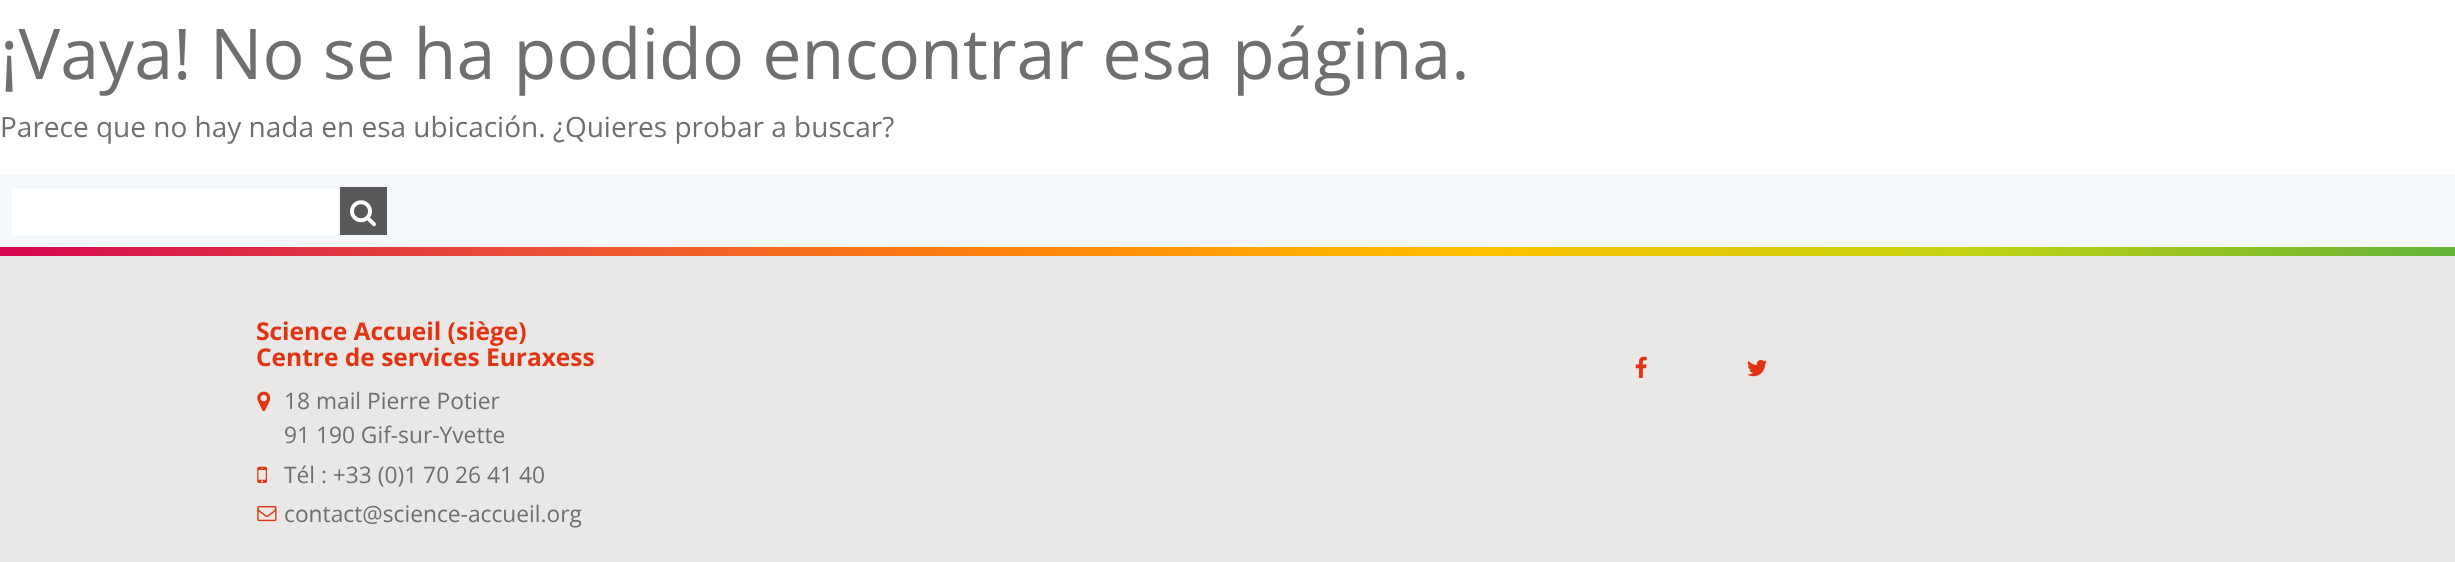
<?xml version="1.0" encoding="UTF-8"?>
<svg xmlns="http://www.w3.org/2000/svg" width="2455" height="562">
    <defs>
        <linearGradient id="g1" gradientUnits="userSpaceOnUse" x1="0" y1="251" x2="2455" y2="251"><stop offset="0" stop-color="#D50851"/><stop offset="0.2" stop-color="#E84B3A"/><stop offset="0.4" stop-color="#FC7F0C"/><stop offset="0.6" stop-color="#FFC000"/><stop offset="0.8" stop-color="#C3D312"/><stop offset="1" stop-color="#63B237"/></linearGradient>
    </defs>
    <rect width="100%" height="100%" fill="#FFFFFF"/>
    <text x="0" y="79" font-family="Open Sans" font-size="70" fill="#6F6F6F">¡Vaya! No se ha podido encontrar esa página.</text>
    <text x="0" y="137" font-family="Open Sans" font-size="28" fill="#6F6F6F">Parece que no hay nada en esa ubicación. ¿Quieres probar a buscar?</text>
    <rect x="0" y="175" width="2455" height="72" fill="#F4F8FA"/>
    <rect x="12" y="189" width="326" height="46" fill="#FFFFFF"/>
    <rect x="340" y="187" width="47" height="48" fill="#58585A"/>
    <image x="350" y="200" width="26" height="27" href="img_01.png"/>
    <rect x="0" y="247" width="2455" height="9" fill="url(#g1)"/>
    <rect x="0" y="256" width="2455" height="306" fill="#E9E8E6"/>
    <text font-family="Open Sans" font-size="24.5" font-weight="700" fill="#E23412">
        <tspan x="256" y="340">Science Accueil (siège)</tspan>
        <tspan x="256" y="366">Centre de services Euraxess</tspan>
    </text>
    <image x="257" y="391" width="14" height="21" href="img_02.png"/>
    <text font-family="Open Sans" font-size="22.75" fill="#6F6F6F">
        <tspan x="284" y="409">18 mail Pierre Potier</tspan>
        <tspan x="284" y="443">91 190 Gif-sur-Yvette</tspan>
    </text>
    <image x="257" y="466" width="10" height="17" href="img_03.png"/>
    <text x="284" y="483" font-family="Open Sans" font-size="22.75" fill="#6F6F6F">Tél : +33 (0)1 70 26 41 40</text>
    <image x="257" y="506" width="20" height="16" href="img_04.png"/>
    <text x="284" y="522" font-family="Open Sans" font-size="22.75" fill="#6F6F6F">contact@science-accueil.org</text>
    <image x="1635" y="356" width="12" height="22" href="img_05.png"/>
    <image x="1747" y="360" width="20" height="17" href="img_06.png"/>
</svg>
